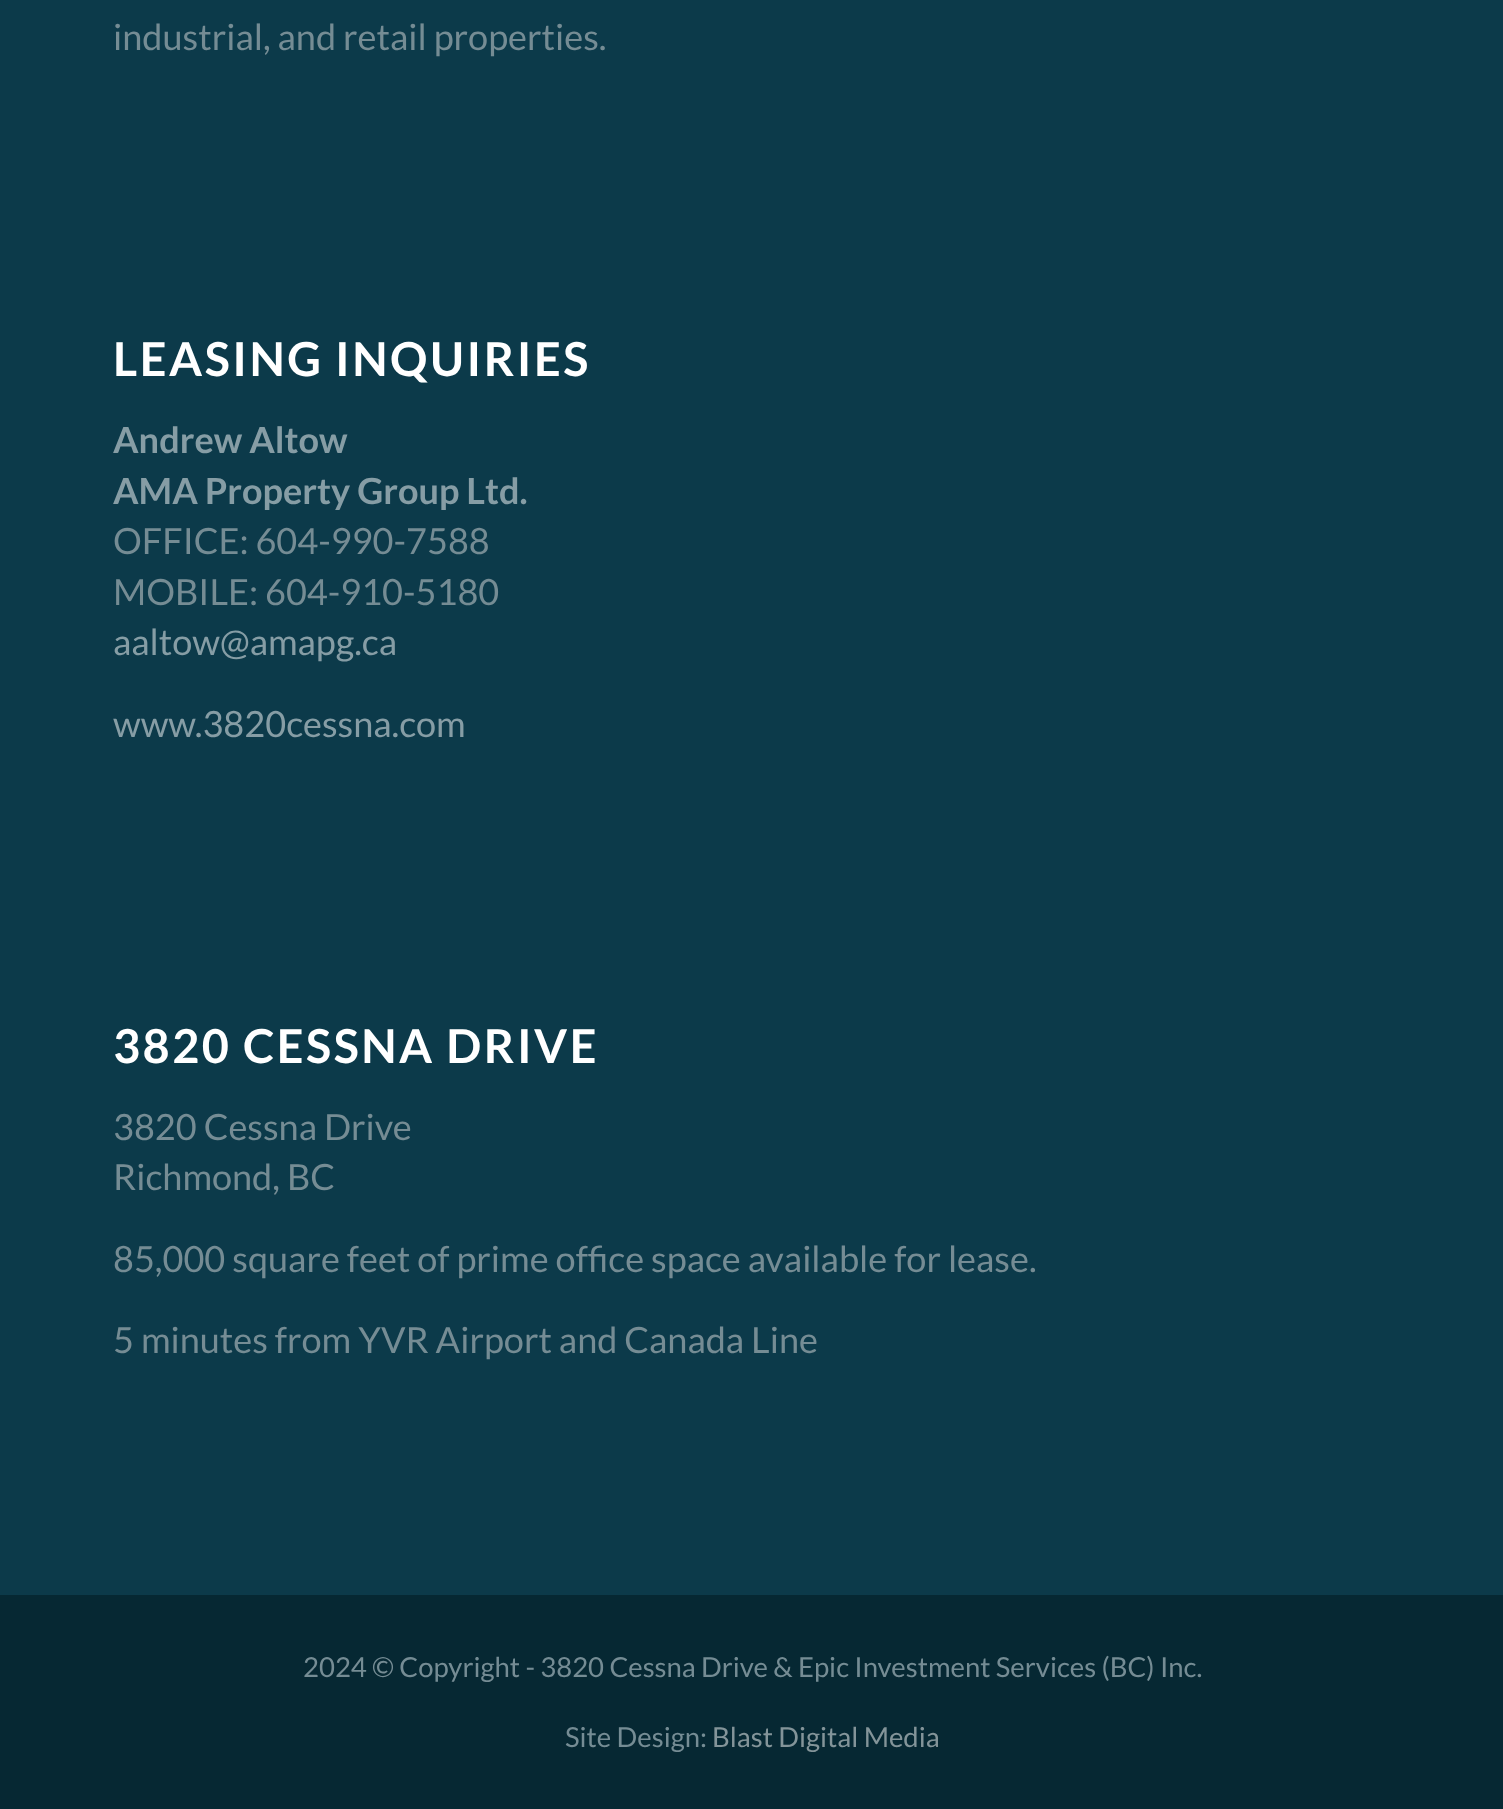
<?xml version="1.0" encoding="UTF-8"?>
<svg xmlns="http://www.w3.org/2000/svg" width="1503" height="1809">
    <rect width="100%" height="100%" fill="#0C3A4A"/>
    <text x="113" y="50" font-family="Lato" font-size="36.1" fill="#758C94">industrial, and retail properties.</text>
    <text x="113" y="376" font-family="Lato" font-size="46.75" font-weight="700" letter-spacing="2.5" fill="#FFFFFF">LEASING INQUIRIES</text>
    <text font-family="Lato" font-size="36.1" font-weight="700" fill="#869DA5">
        <tspan x="113" y="453">Andrew Altow</tspan>
        <tspan x="113" y="504">AMA Property Group Ltd.</tspan>
    </text>
    <text font-family="Lato" font-size="36.1" fill="#758C94">
        <tspan x="113" y="554">OFFICE: 604-990-7588</tspan>
        <tspan x="113" y="605">MOBILE: 604-910-5180</tspan>
    </text>
    <text x="113" y="655" font-family="Lato" font-size="36.1" fill="#869DA5">aaltow@amapg.ca</text>
    <text x="113" y="737" font-family="Lato" font-size="36.1" fill="#869DA5">www.3820cessna.com</text>
    <text x="113" y="1063" font-family="Lato" font-size="46.75" font-weight="700" letter-spacing="2.5" fill="#FFFFFF">3820 CESSNA DRIVE</text>
    <text font-family="Lato" font-size="36.1" fill="#758C94">
        <tspan x="113" y="1140">3820 Cessna Drive</tspan>
        <tspan x="113" y="1190">Richmond, BC</tspan>
    </text>
    <text x="113" y="1272" font-family="Lato" font-size="36.1" fill="#758C94">85,000 square feet of prime office space available for lease.</text>
    <text x="113" y="1353" font-family="Lato" font-size="36.1" fill="#758C94">5 minutes from YVR Airport and Canada Line</text>
    <rect x="0" y="1595" width="1503" height="214" fill="#062833"/>
    <text x="303" y="1677" font-family="Lato" font-size="27.5" fill="#758C94">2024 © Copyright - 3820 Cessna Drive &amp; Epic Investment Services (BC) Inc.</text>
    <text x="565" y="1747" font-family="Lato" font-size="27.5" fill="#758C94">Site Design:</text>
    <text x="712" y="1747" font-family="Lato" font-size="27.5" fill="#839499">Blast Digital Media</text>
</svg>
